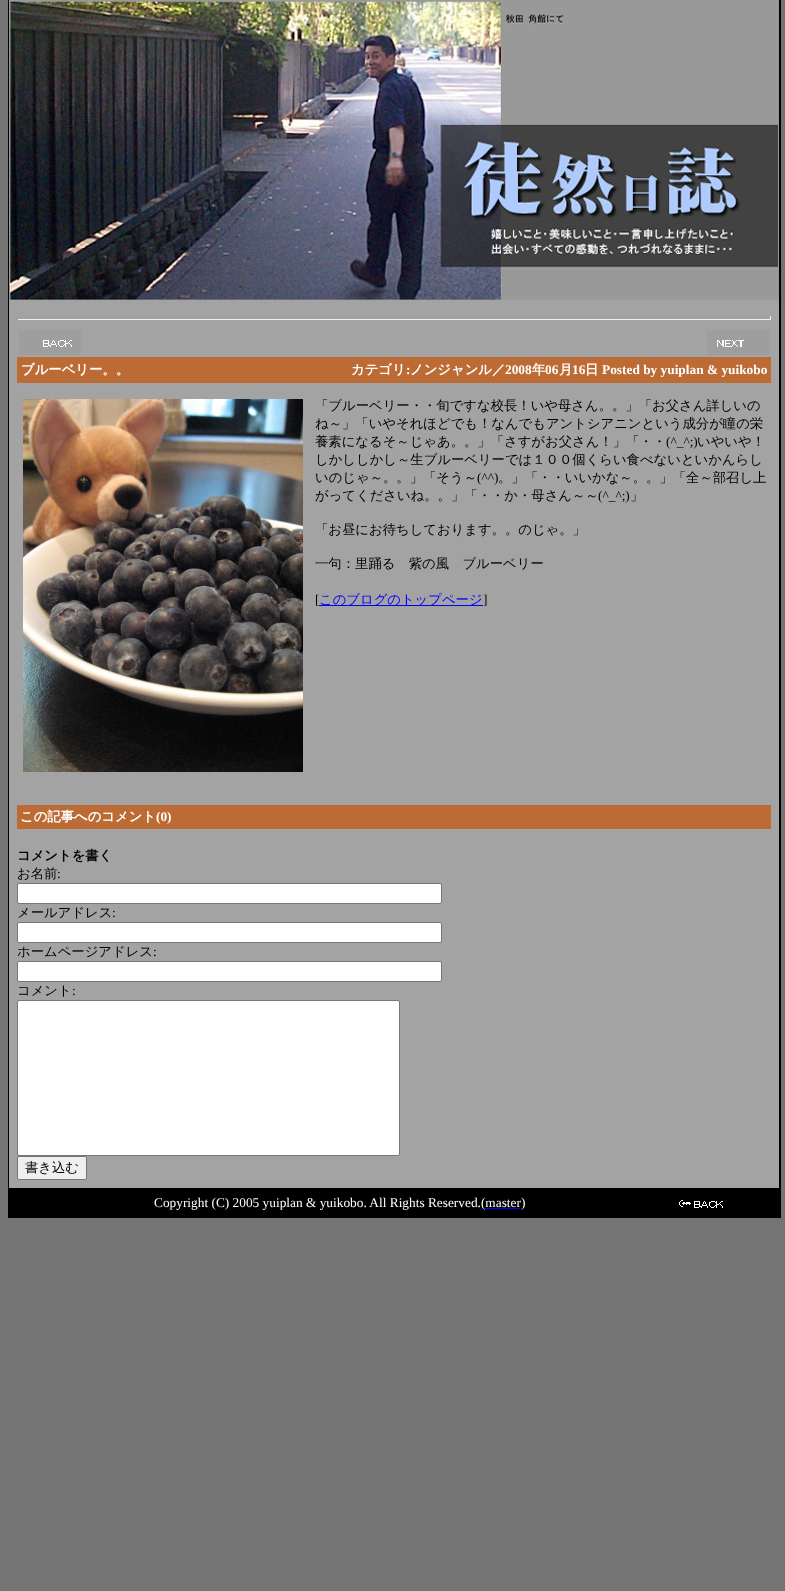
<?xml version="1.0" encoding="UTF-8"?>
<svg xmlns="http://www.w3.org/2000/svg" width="785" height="1591">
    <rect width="100%" height="100%" fill="#747474"/>
    <rect x="779" y="0" width="2" height="1188" fill="#000000"/>
    <rect x="8" y="0" width="1" height="1188" fill="#000000"/>
    <image x="9" y="0" width="770" height="300" href="img_01.png"/>
    <rect x="9" y="300" width="770" height="888" fill="#A3A3A3"/>
    <rect x="17" y="316" width="754" height="1" fill="#9F9F9F"/>
    <rect x="770" y="316" width="1" height="4" fill="#EEEEEE"/>
    <rect x="17" y="319" width="754" height="1" fill="#EEEEEE"/>
    <rect x="17" y="316" width="1" height="4" fill="#9F9F9F"/>
    <image x="19" y="330" width="62" height="25" href="img_02.png"/>
    <image x="707" y="330" width="62" height="25" href="img_03.png"/>
    <rect x="17" y="357" width="754" height="26" fill="#BD6B34"/>
    <text x="21" y="374" font-family="WenQuanYi Zen Hei" font-size="13.35" font-weight="700" fill="#FFFFFF">ブルーベリー。。</text>
    <text x="351" y="374" font-family="WenQuanYi Zen Hei" font-size="13.35" font-weight="700" fill="#FFFFFF">カテゴリ</text>
    <text x="406" y="374" font-family="Liberation Serif" font-size="13.35" font-weight="700" fill="#FFFFFF">:</text>
    <text x="410" y="374" font-family="WenQuanYi Zen Hei" font-size="13.35" font-weight="700" fill="#FFFFFF">ノンジャンル／</text>
    <text x="505" y="374" font-family="Liberation Serif" font-size="13.35" font-weight="700" fill="#FFFFFF">2008</text>
    <text x="532" y="374" font-family="WenQuanYi Zen Hei" font-size="13.35" font-weight="700" fill="#FFFFFF">年</text>
    <text x="545" y="374" font-family="Liberation Serif" font-size="13.35" font-weight="700" fill="#FFFFFF">06</text>
    <text x="559" y="374" font-family="WenQuanYi Zen Hei" font-size="13.35" font-weight="700" fill="#FFFFFF">月</text>
    <text x="572" y="374" font-family="Liberation Serif" font-size="13.35" font-weight="700" fill="#FFFFFF">16</text>
    <text x="585" y="374" font-family="WenQuanYi Zen Hei" font-size="13.35" font-weight="700" fill="#FFFFFF">日</text>
    <text x="602" y="374" font-family="Liberation Serif" font-size="13.35" font-weight="700" fill="#FFFFFF">Posted by yuiplan &amp; yuikobo</text>
    <image x="23" y="399" width="280" height="373" href="img_04.png"/>
    <text font-family="WenQuanYi Zen Hei" font-size="13.35" font-weight="500" fill="#000000">
        <tspan x="315" y="410">「ブルーベリー・・旬ですな校長！いや母さん。。」「お父さん詳しいの</tspan>
        <tspan x="315" y="428">ね～」「いやそれほどでも！なんでもアントシアニンという成分が瞳の栄</tspan>
        <tspan x="315" y="446">養素になるそ～じゃあ。。」「さすがお父さん！」「・・</tspan>
    </text>
    <text x="666" y="446" font-family="Liberation Serif" font-size="13.35" fill="#000000">(^_^;)</text>
    <text x="697" y="446" font-family="WenQuanYi Zen Hei" font-size="13.35" font-weight="500" fill="#000000">いやいや！</text>
    <text font-family="WenQuanYi Zen Hei" font-size="13.35" font-weight="500" fill="#000000">
        <tspan x="315" y="464">しかししかし～生ブルーベリーでは１００個くらい食べないといかんらし</tspan>
        <tspan x="315" y="482">いのじゃ～。。」「そう～</tspan>
    </text>
    <text x="477" y="482" font-family="Liberation Serif" font-size="13.35" fill="#000000">(^^)</text>
    <text x="498" y="482" font-family="WenQuanYi Zen Hei" font-size="13.35" font-weight="500" fill="#000000">。」「・・いいかな～。。」「全～部召し上</text>
    <text x="315" y="500" font-family="WenQuanYi Zen Hei" font-size="13.35" font-weight="500" fill="#000000">がってくださいね。。」「・・か・母さん～～</text>
    <text x="598" y="500" font-family="Liberation Serif" font-size="13.35" fill="#000000">(^_^;)</text>
    <text x="630" y="500" font-family="WenQuanYi Zen Hei" font-size="13.35" font-weight="500" fill="#000000">」</text>
    <text x="315" y="534" font-family="WenQuanYi Zen Hei" font-size="13.35" font-weight="500" fill="#000000">「お昼にお待ちしております。。のじゃ。」</text>
    <text x="315" y="568" font-family="WenQuanYi Zen Hei" font-size="13.35" font-weight="500" fill="#000000">一句：里踊る　紫の風　ブルーベリー</text>
    <text x="315" y="604" font-family="Liberation Serif" font-size="13.35" fill="#000000">[</text>
    <rect x="319" y="605" width="164" height="1" fill="#0000FF"/>
    <text x="319" y="604" font-family="WenQuanYi Zen Hei" font-size="13.35" font-weight="500" fill="#0000FF">このブログのトップページ</text>
    <text x="483" y="604" font-family="Liberation Serif" font-size="13.35" fill="#000000">]</text>
    <rect x="17" y="805" width="754" height="24" fill="#BD6B34"/>
    <text x="20" y="821" font-family="WenQuanYi Zen Hei" font-size="13.35" font-weight="700" fill="#FFFFFF">この記事へのコメント</text>
    <text x="156" y="821" font-family="Liberation Serif" font-size="13.35" font-weight="700" fill="#FFFFFF">(0)</text>
    <text x="17" y="860" font-family="WenQuanYi Zen Hei" font-size="13.35" font-weight="700" fill="#000000">コメントを書く</text>
    <text x="17" y="878" font-family="WenQuanYi Zen Hei" font-size="13.35" font-weight="500" fill="#000000">お名前</text>
    <text x="57" y="878" font-family="Liberation Serif" font-size="13.35" fill="#000000">:</text>
    <rect x="17.5" y="883.5" width="424" height="20" rx="1.5" fill="#FFFFFF" stroke="#767676"/>
    <text x="17" y="917" font-family="WenQuanYi Zen Hei" font-size="13.35" font-weight="500" fill="#000000">メールアドレス</text>
    <text x="112" y="917" font-family="Liberation Serif" font-size="13.35" fill="#000000">:</text>
    <rect x="17.5" y="922.5" width="424" height="20" rx="1.5" fill="#FFFFFF" stroke="#767676"/>
    <text x="17" y="956" font-family="WenQuanYi Zen Hei" font-size="13.35" font-weight="500" fill="#000000">ホームページアドレス</text>
    <text x="153" y="956" font-family="Liberation Serif" font-size="13.35" fill="#000000">:</text>
    <rect x="17.5" y="961.5" width="424" height="20" rx="1.5" fill="#FFFFFF" stroke="#767676"/>
    <text x="17" y="995" font-family="WenQuanYi Zen Hei" font-size="13.35" font-weight="500" fill="#000000">コメント</text>
    <text x="72" y="995" font-family="Liberation Serif" font-size="13.35" fill="#000000">:</text>
    <rect x="17.5" y="1000.5" width="382" height="155" rx="1.5" fill="#FFFFFF" stroke="#767676"/>
    <rect x="17.5" y="1156.5" width="69" height="23" rx="1.5" fill="#EFEFEF" stroke="#767676"/>
    <text x="25" y="1172" font-family="WenQuanYi Zen Hei" font-size="13.35" font-weight="500" fill="#000000">書き込む</text>
    <rect x="8" y="1188" width="773" height="30" fill="#000000"/>
    <text x="154" y="1207" font-family="Liberation Serif" font-size="13.35" fill="#FFFFFF">Copyright (C) 2005 yuiplan &amp; yuikobo. All Rights Reserved.(master)</text>
    <rect x="485" y="1208" width="35" height="1" fill="#0000FF"/>
    <image x="679" y="1200" width="44" height="8" href="img_05.png"/>
</svg>
